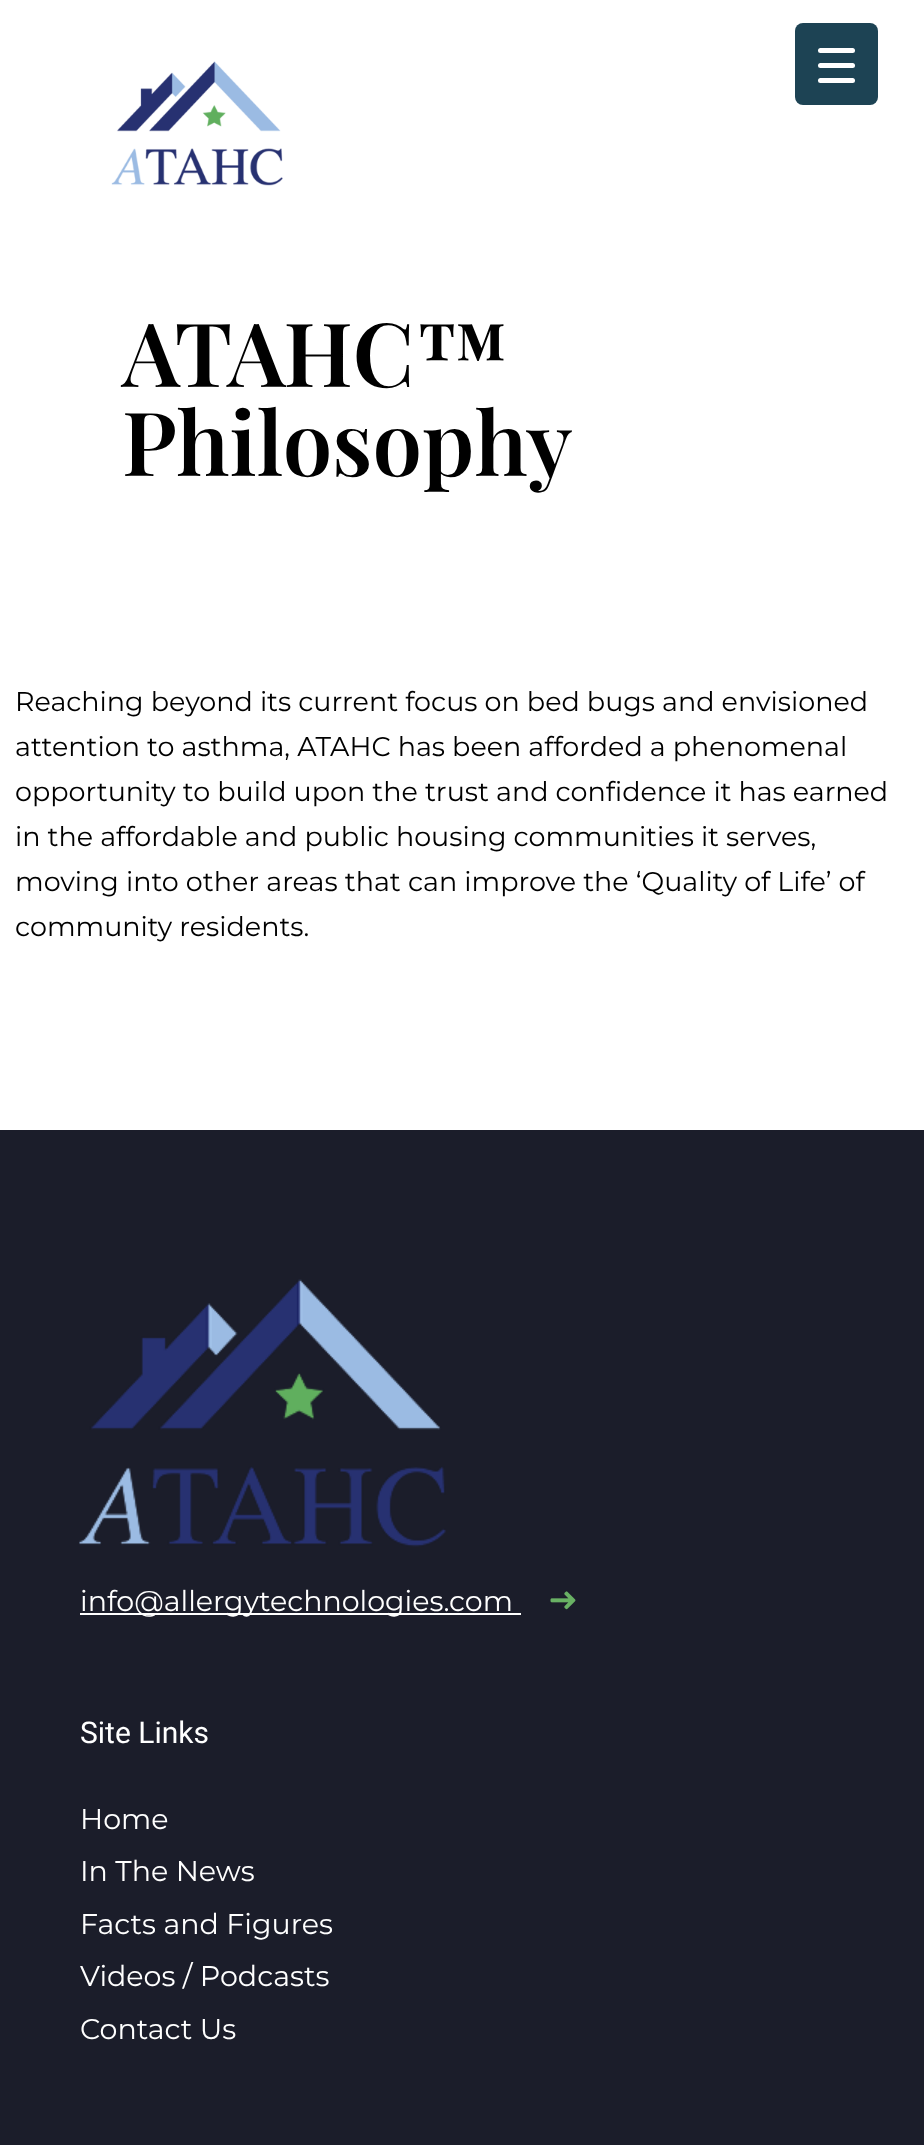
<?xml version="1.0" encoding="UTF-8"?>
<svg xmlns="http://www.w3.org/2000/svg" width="924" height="2145">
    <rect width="100%" height="100%" fill="#FFFFFF"/>
    <image x="111" y="61" width="172" height="125" href="img_01.png"/>
    <rect x="795" y="23" width="83" height="82" rx="8" fill="#1D4354"/>
    <rect x="818" y="63" width="37" height="5" rx="2.5" fill="#FFFFFF"/>
    <rect x="818" y="48" width="37" height="5" rx="2.5" fill="#FFFFFF"/>
    <rect x="818" y="78" width="37" height="5" rx="2.5" fill="#FFFFFF"/>
    <text font-family="Playfair Display" font-size="88.5" font-weight="600" fill="#000000">
        <tspan x="122" y="387">ATAHC™</tspan>
        <tspan x="122" y="476">Philosophy</tspan>
    </text>
    <text font-family="Montserrat" font-size="27" fill="#000000">
        <tspan x="15" y="711">Reaching beyond its current focus on bed bugs and envisioned</tspan>
        <tspan x="15" y="756">attention to asthma, ATAHC has been afforded a phenomenal</tspan>
        <tspan x="15" y="801">opportunity to build upon the trust and confidence it has earned</tspan>
        <tspan x="15" y="846">in the affordable and public housing communities it serves,</tspan>
        <tspan x="15" y="891">moving into other areas that can improve the ‘Quality of Life’ of</tspan>
        <tspan x="15" y="936">community residents.</tspan>
    </text>
    <rect x="0" y="1130" width="924" height="1015" fill="#1B1D2A"/>
    <image x="79" y="1279" width="367" height="268" href="img_02.png"/>
    <rect x="80" y="1613" width="441" height="2" fill="#FFFFFF"/>
    <text x="80" y="1611" font-family="Montserrat" font-size="28.5" fill="#FFFFFF">info@allergytechnologies.com</text>
    <image x="550" y="1591" width="26" height="19" href="img_03.png"/>
    <text x="80" y="1743" font-family="Roboto" font-size="30" fill="#FFFFFF">Site Links</text>
    <text font-family="Montserrat" font-size="28.5" fill="#FFFFFF">
        <tspan x="80" y="1829">Home</tspan>
        <tspan x="80" y="1881">In The News</tspan>
        <tspan x="80" y="1934">Facts and Figures</tspan>
        <tspan x="80" y="1986">Videos / Podcasts</tspan>
        <tspan x="80" y="2039">Contact Us</tspan>
    </text>
</svg>
